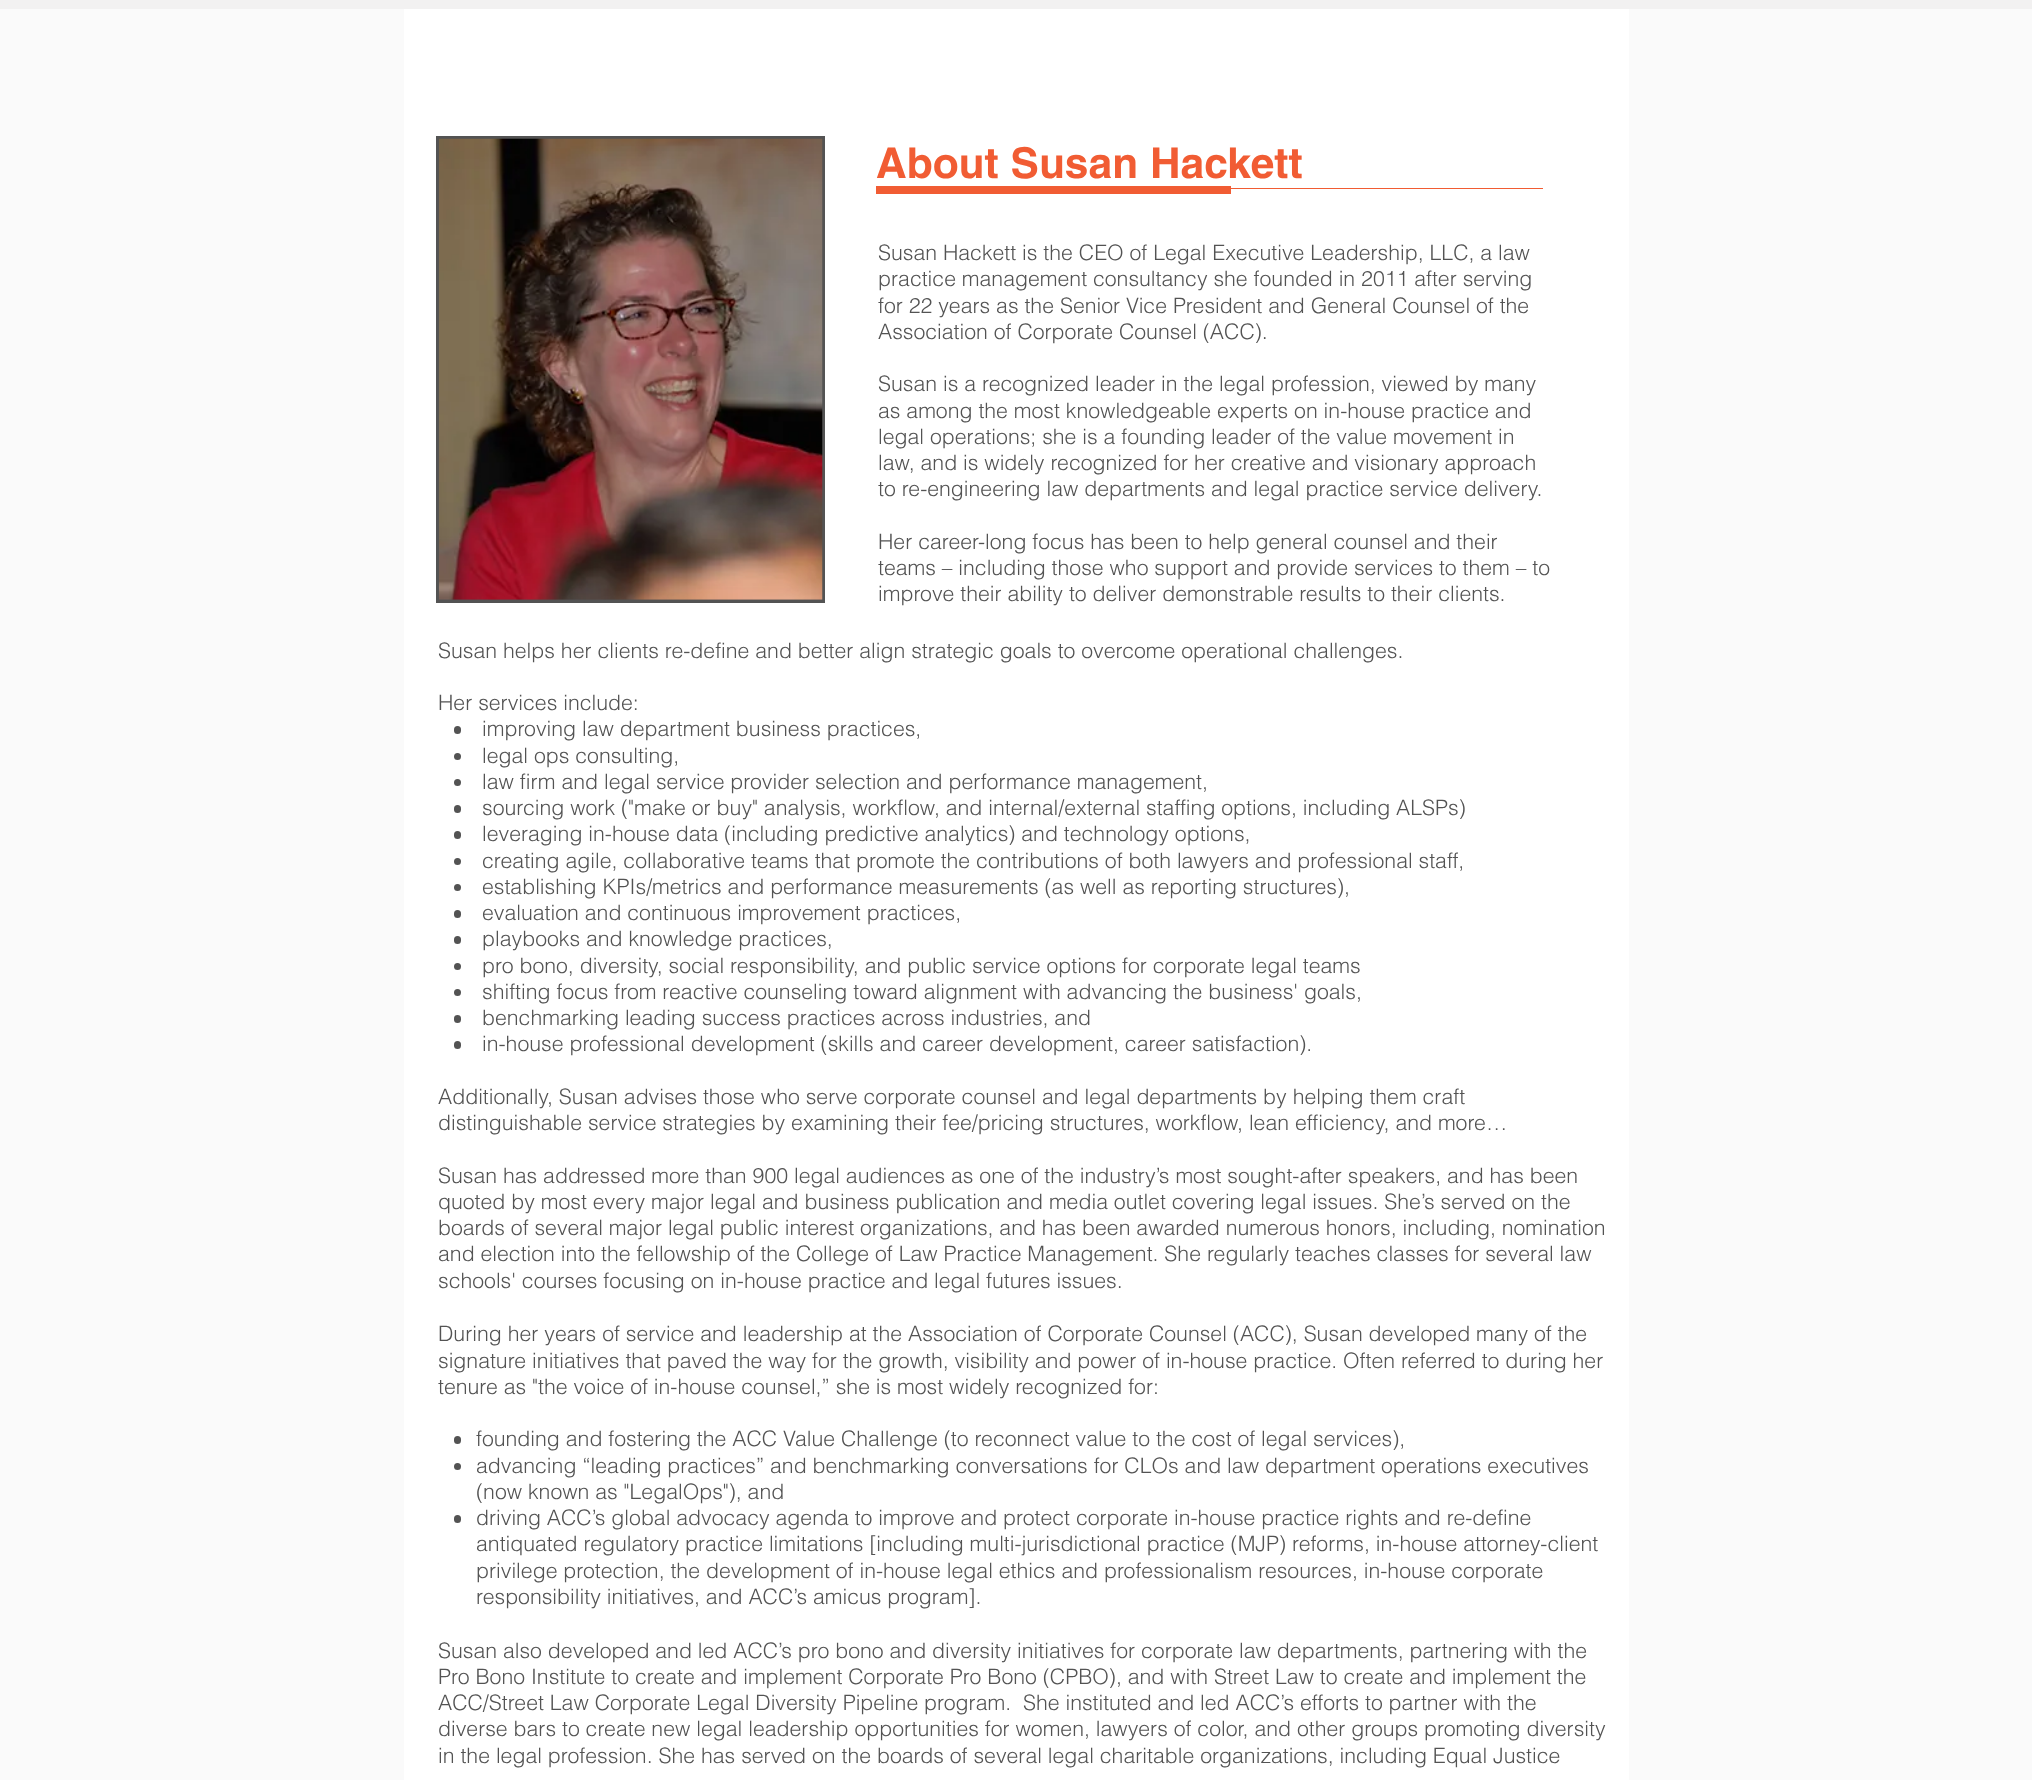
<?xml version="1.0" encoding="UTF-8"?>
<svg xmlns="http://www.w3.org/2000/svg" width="2032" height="1780">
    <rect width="100%" height="100%" fill="#FAFAFA"/>
    <rect x="0" y="0" width="2032" height="9" fill="#F2F1F1"/>
    <rect x="404" y="9" width="1225" height="1771" fill="#FFFFFF"/>
    <rect x="436" y="136" width="389" height="467" fill="#535353"/>
    <image x="438" y="138" width="385" height="462" href="img_01.png"/>
    <text x="876" y="178" font-family="helvetica" font-size="42.5" font-weight="700" fill="#F15C33">About Susan Hackett</text>
    <rect x="876" y="186" width="355" height="8" fill="#F15C33"/>
    <rect x="1231" y="188" width="312" height="1" fill="#F15C33"/>
    <text font-family="helvetica" font-size="21.25" font-weight="300" fill="#535353">
        <tspan x="878" y="260">Susan Hackett is the CEO of Legal Executive Leadership, LLC, a law</tspan>
        <tspan x="878" y="286">practice management consultancy she founded in 2011 after serving</tspan>
        <tspan x="878" y="313">for 22 years as the Senior Vice President and General Counsel of the</tspan>
        <tspan x="878" y="339">Association of Corporate Counsel (ACC).</tspan>
    </text>
    <text font-family="helvetica" font-size="21.25" font-weight="300" fill="#535353">
        <tspan x="878" y="391">Susan is a recognized leader in the legal profession, viewed by many</tspan>
        <tspan x="878" y="418">as among the most knowledgeable experts on in-house practice and</tspan>
        <tspan x="878" y="444">legal operations; she is a founding leader of the value movement in</tspan>
        <tspan x="878" y="470">law, and is widely recognized for her creative and visionary approach</tspan>
        <tspan x="878" y="496">to re-engineering law departments and legal practice service delivery.</tspan>
    </text>
    <text font-family="helvetica" font-size="21.25" font-weight="300" fill="#535353">
        <tspan x="878" y="549">Her career-long focus has been to help general counsel and their</tspan>
        <tspan x="878" y="575">teams – including those who support and provide services to them – to</tspan>
        <tspan x="878" y="601">improve their ability to deliver demonstrable results to their clients.</tspan>
    </text>
    <text x="438" y="658" font-family="helvetica" font-size="21.25" font-weight="300" fill="#535353">Susan helps her clients re-define and better align strategic goals to overcome operational challenges.</text>
    <text x="438" y="710" font-family="helvetica" font-size="21.25" font-weight="300" fill="#535353">Her services include:</text>
    <rect x="454" y="726" width="7" height="8" rx="3.5" fill="#535353"/>
    <text x="482" y="736" font-family="helvetica" font-size="21.25" font-weight="300" fill="#535353">improving law department business practices,</text>
    <circle cx="457.5" cy="756.5" r="3.5" fill="#535353"/>
    <text x="482" y="763" font-family="helvetica" font-size="21.25" font-weight="300" fill="#535353">legal ops consulting,</text>
    <circle cx="457.5" cy="782.5" r="3.5" fill="#535353"/>
    <text x="482" y="789" font-family="helvetica" font-size="21.25" font-weight="300" fill="#535353">law firm and legal service provider selection and performance management,</text>
    <rect x="454" y="805" width="7" height="8" rx="3.5" fill="#535353"/>
    <text x="482" y="815" font-family="helvetica" font-size="21.25" font-weight="300" fill="#535353">sourcing work ("make or buy" analysis, workflow, and internal/external staffing options, including ALSPs)</text>
    <rect x="454" y="831" width="7" height="8" rx="3.5" fill="#535353"/>
    <text x="482" y="841" font-family="helvetica" font-size="21.25" font-weight="300" fill="#535353">leveraging in-house data (including predictive analytics) and technology options,</text>
    <circle cx="457.5" cy="861.5" r="3.5" fill="#535353"/>
    <text x="482" y="868" font-family="helvetica" font-size="21.25" font-weight="300" fill="#535353">creating agile, collaborative teams that promote the contributions of both lawyers and professional staff,</text>
    <circle cx="457.5" cy="887.5" r="3.5" fill="#535353"/>
    <text x="482" y="894" font-family="helvetica" font-size="21.25" font-weight="300" fill="#535353">establishing KPIs/metrics and performance measurements (as well as reporting structures),</text>
    <rect x="454" y="910" width="7" height="8" rx="3.5" fill="#535353"/>
    <text x="482" y="920" font-family="helvetica" font-size="21.25" font-weight="300" fill="#535353">evaluation and continuous improvement practices,</text>
    <rect x="454" y="936" width="7" height="8" rx="3.5" fill="#535353"/>
    <text x="482" y="946" font-family="helvetica" font-size="21.25" font-weight="300" fill="#535353">playbooks and knowledge practices,</text>
    <circle cx="457.5" cy="966.5" r="3.5" fill="#535353"/>
    <text x="482" y="973" font-family="helvetica" font-size="21.25" font-weight="300" fill="#535353">pro bono, diversity, social responsibility, and public service options for corporate legal teams</text>
    <circle cx="457.5" cy="992.5" r="3.5" fill="#535353"/>
    <text x="482" y="999" font-family="helvetica" font-size="21.25" font-weight="300" fill="#535353">shifting focus from reactive counseling toward alignment with advancing the business' goals,</text>
    <rect x="454" y="1015" width="7" height="8" rx="3.5" fill="#535353"/>
    <text x="482" y="1025" font-family="helvetica" font-size="21.25" font-weight="300" fill="#535353">benchmarking leading success practices across industries, and</text>
    <rect x="454" y="1041" width="7" height="8" rx="3.5" fill="#535353"/>
    <text x="482" y="1051" font-family="helvetica" font-size="21.25" font-weight="300" fill="#535353">in-house professional development (skills and career development, career satisfaction).</text>
    <text font-family="helvetica" font-size="21.25" font-weight="300" fill="#535353">
        <tspan x="438" y="1104">Additionally, Susan advises those who serve corporate counsel and legal departments by helping them craft</tspan>
        <tspan x="438" y="1130">distinguishable service strategies by examining their fee/pricing structures, workflow, lean efficiency, and more…</tspan>
    </text>
    <text font-family="helvetica" font-size="21.25" font-weight="300" fill="#535353">
        <tspan x="438" y="1183">Susan has addressed more than 900 legal audiences as one of the industry’s most sought-after speakers, and has been</tspan>
        <tspan x="438" y="1209">quoted by most every major legal and business publication and media outlet covering legal issues. She’s served on the</tspan>
        <tspan x="438" y="1235">boards of several major legal public interest organizations, and has been awarded numerous honors, including, nomination</tspan>
        <tspan x="438" y="1261">and election into the fellowship of the College of Law Practice Management. She regularly teaches classes for several law</tspan>
        <tspan x="438" y="1288">schools' courses focusing on in-house practice and legal futures issues.</tspan>
    </text>
    <text font-family="helvetica" font-size="21.25" font-weight="300" fill="#535353">
        <tspan x="438" y="1341">During her years of service and leadership at the Association of Corporate Counsel (ACC), Susan developed many of the</tspan>
        <tspan x="438" y="1368">signature initiatives that paved the way for the growth, visibility and power of in-house practice. Often referred to during her</tspan>
        <tspan x="438" y="1394">tenure as "the voice of in-house counsel,” she is most widely recognized for:</tspan>
    </text>
    <rect x="454" y="1436" width="7" height="8" rx="3.5" fill="#535353"/>
    <text x="476" y="1446" font-family="helvetica" font-size="21.25" font-weight="300" fill="#535353">founding and fostering the ACC Value Challenge (to reconnect value to the cost of legal services),</text>
    <circle cx="457.5" cy="1466.5" r="3.5" fill="#535353"/>
    <text font-family="helvetica" font-size="21.25" font-weight="300" fill="#535353">
        <tspan x="476" y="1473">advancing “leading practices” and benchmarking conversations for CLOs and law department operations executives</tspan>
        <tspan x="476" y="1499">(now known as "LegalOps"), and</tspan>
    </text>
    <rect x="454" y="1515" width="7" height="8" rx="3.5" fill="#535353"/>
    <text font-family="helvetica" font-size="21.25" font-weight="300" fill="#535353">
        <tspan x="476" y="1525">driving ACC’s global advocacy agenda to improve and protect corporate in-house practice rights and re-define</tspan>
        <tspan x="476" y="1551">antiquated regulatory practice limitations [including multi-jurisdictional practice (MJP) reforms, in-house attorney-client</tspan>
        <tspan x="476" y="1578">privilege protection, the development of in-house legal ethics and professionalism resources, in-house corporate</tspan>
        <tspan x="476" y="1604">responsibility initiatives, and ACC’s amicus program].</tspan>
    </text>
    <text font-family="helvetica" font-size="21.25" font-weight="300" fill="#535353" xml:space="preserve"><tspan x="438" y="1658">Susan also developed and led ACC’s pro bono and diversity initiatives for corporate law departments, partnering with the</tspan><tspan x="438" y="1684">Pro Bono Institute to create and implement Corporate Pro Bono (CPBO), and with Street Law to create and implement the</tspan><tspan x="438" y="1710">ACC/Street Law Corporate Legal Diversity Pipeline program.  She instituted and led ACC’s efforts to partner with the</tspan><tspan x="438" y="1736">diverse bars to create new legal leadership opportunities for women, lawyers of color, and other groups promoting diversity</tspan><tspan x="438" y="1763">in the legal profession. She has served on the boards of several legal charitable organizations, including Equal Justice</tspan></text>
</svg>
